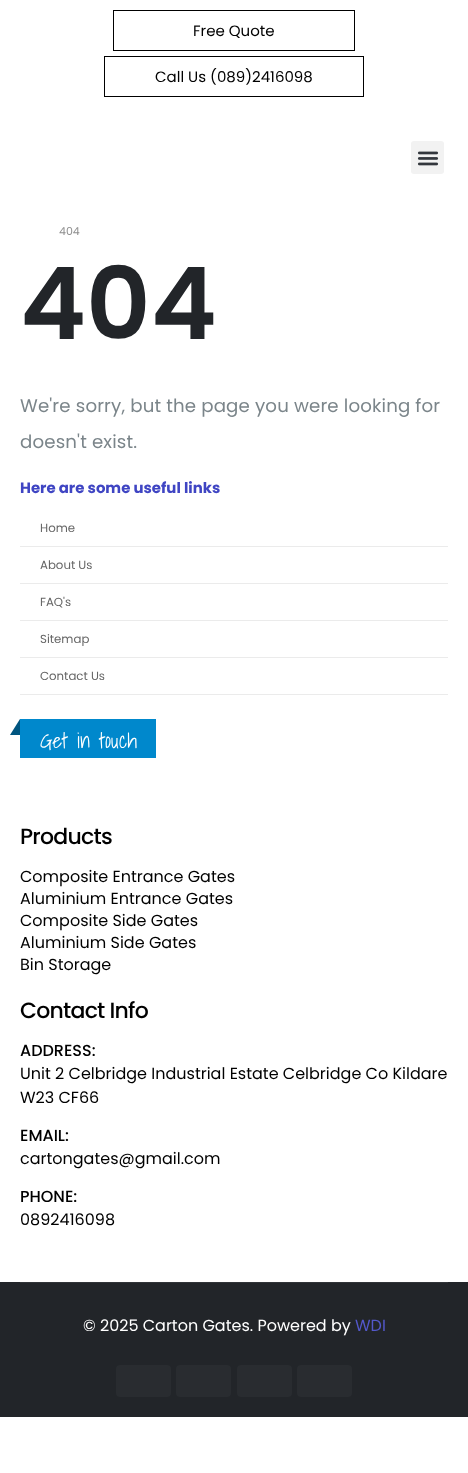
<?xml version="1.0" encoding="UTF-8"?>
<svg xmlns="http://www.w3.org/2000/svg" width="468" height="1473">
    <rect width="100%" height="100%" fill="#FFFFFF"/>
    <rect x="113.5" y="10.5" width="241" height="40" fill="none" stroke="#000000"/>
    <text x="193" y="36" font-family="Poppins" font-size="15" fill="#000000">Free Quote</text>
    <rect x="104.5" y="56.5" width="259" height="40" fill="none" stroke="#000000"/>
    <text x="155" y="82" font-family="Poppins" font-size="15" fill="#000000">Call Us (089)2416098</text>
    <rect x="411" y="141" width="33" height="33" rx="3" fill="#F2F2F2"/>
    <image x="417" y="151" width="22" height="15" href="img_01.png"/>
    <text x="59" y="235" font-family="Poppins" font-size="11" fill="#8E8E8E">404</text>
    <text x="20" y="339" font-family="Poppins" font-size="100" font-weight="600" fill="#222529">404</text>
    <text font-family="Poppins" font-size="18.2" letter-spacing="0.15" fill="#7B858A">
        <tspan x="20" y="412">We're sorry, but the page you were looking for</tspan>
        <tspan x="20" y="448">doesn't exist.</tspan>
    </text>
    <text x="20" y="493" font-family="Poppins" font-size="14.9" font-weight="700" fill="#3F45C3">Here are some useful links</text>
    <rect x="20" y="546" width="428" height="1" fill="#EBEBEB"/>
    <text x="40" y="532" font-family="Poppins" font-size="11.75" fill="#666666">Home</text>
    <rect x="20" y="583" width="428" height="1" fill="#EBEBEB"/>
    <text x="40" y="569" font-family="Poppins" font-size="11.75" fill="#666666">About Us</text>
    <rect x="20" y="620" width="428" height="1" fill="#EBEBEB"/>
    <text x="40" y="606" font-family="Poppins" font-size="11.75" fill="#666666">FAQ's</text>
    <rect x="20" y="657" width="428" height="1" fill="#EBEBEB"/>
    <text x="40" y="643" font-family="Poppins" font-size="11.75" fill="#666666">Sitemap</text>
    <rect x="20" y="694" width="428" height="1" fill="#EBEBEB"/>
    <text x="40" y="680" font-family="Poppins" font-size="11.75" fill="#666666">Contact Us</text>
    <rect x="0" y="1282" width="468" height="135" fill="#222529"/>
    <rect x="20" y="719" width="136" height="39" fill="#0088CC"/>
    <path d="M 20 719 V 735 H 10 Z" fill="#005580"/>
    <text x="40" y="748" font-family="Shadows Into Light" font-size="21" fill="#FFFFFF">Get in touch</text>
    <text x="20" y="844" font-family="Poppins" font-size="22" font-weight="500" letter-spacing="-0.75" fill="#000000">Products</text>
    <text font-family="Poppins" font-size="16" fill="#000000">
        <tspan x="20" y="882">Composite Entrance Gates</tspan>
        <tspan x="20" y="904">Aluminium Entrance Gates</tspan>
        <tspan x="20" y="926">Composite Side Gates</tspan>
        <tspan x="20" y="948">Aluminium Side Gates</tspan>
        <tspan x="20" y="970">Bin Storage</tspan>
    </text>
    <text x="20" y="1018" font-family="Poppins" font-size="22" font-weight="500" letter-spacing="-0.75" fill="#000000">Contact Info</text>
    <text x="20" y="1056" font-family="Poppins" font-size="16" font-weight="500" fill="#000000">ADDRESS:</text>
    <text font-family="Poppins" font-size="16" fill="#000000">
        <tspan x="20" y="1079">Unit 2 Celbridge Industrial Estate Celbridge Co Kildare</tspan>
        <tspan x="20" y="1103">W23 CF66</tspan>
    </text>
    <text x="20" y="1141" font-family="Poppins" font-size="16" font-weight="500" fill="#000000">EMAIL:</text>
    <text x="20" y="1164" font-family="Poppins" font-size="16" fill="#000000">cartongates@gmail.com</text>
    <text x="20" y="1202" font-family="Poppins" font-size="16" font-weight="500" fill="#000000">PHONE:</text>
    <text x="20" y="1225" font-family="Poppins" font-size="16" fill="#000000">0892416098</text>
    <rect x="20" y="1282" width="428" height="1" fill="#313438"/>
    <text x="83" y="1331" font-family="Poppins" font-size="16" fill="#FFFFFF">© 2025 Carton Gates. Powered by</text>
    <text x="355" y="1331" font-family="Poppins" font-size="16" fill="#5358CA">WDI</text>
    <rect x="116" y="1365" width="55" height="32" rx="4" fill="#292C30"/>
    <rect x="176" y="1365" width="55" height="32" rx="4" fill="#292C30"/>
    <rect x="237" y="1365" width="55" height="32" rx="4" fill="#292C30"/>
    <rect x="297" y="1365" width="55" height="32" rx="4" fill="#292C30"/>
</svg>
